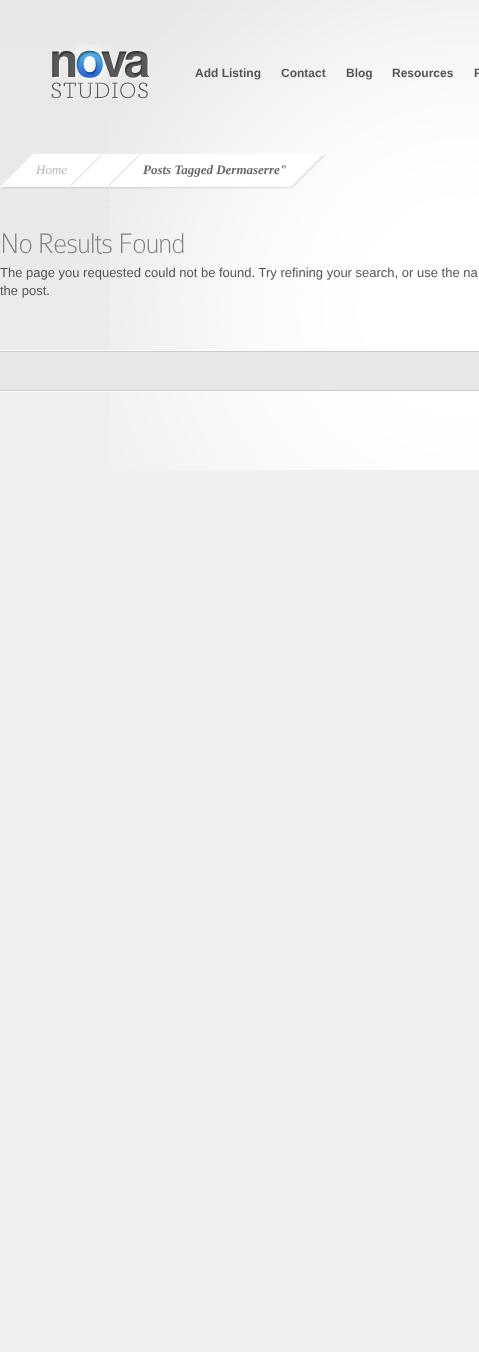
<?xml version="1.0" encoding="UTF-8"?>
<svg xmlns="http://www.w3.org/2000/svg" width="479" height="1352">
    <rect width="100%" height="100%" fill="#EFF0EF"/>
    <image x="0" y="0" width="479" height="350" href="img_01.png"/>
    <image x="109" y="0" width="370" height="470" href="img_02.png"/>
    <image x="51" y="44" width="99" height="56" href="img_03.png"/>
    <text x="195" y="77" font-family="Liberation Sans" font-size="12" font-weight="700" fill="#555555">Add Listing</text>
    <text x="281" y="77" font-family="Liberation Sans" font-size="12" font-weight="700" fill="#555555">Contact</text>
    <text x="346" y="77" font-family="Liberation Sans" font-size="12" font-weight="700" fill="#555555">Blog</text>
    <text x="392" y="77" font-family="Liberation Sans" font-size="12" font-weight="700" fill="#555555">Resources</text>
    <text x="474" y="77" font-family="Liberation Sans" font-size="12" font-weight="700" fill="#555555">F</text>
    <image x="0" y="154" width="33" height="35" href="img_04.png"/>
    <image x="33" y="154" width="257" height="35" href="img_05.png"/>
    <text x="36" y="174" font-family="Liberation Serif" font-size="13" font-style="italic" fill="#B6B6B6">Home</text>
    <image x="70" y="154" width="33" height="32" href="img_06.png"/>
    <image x="108" y="154" width="33" height="32" href="img_06.png"/>
    <text x="143" y="174" font-family="Liberation Serif" font-size="13" font-weight="700" font-style="italic" fill="#686868">Posts Tagged Dermaserre"</text>
    <image x="290" y="154" width="35" height="35" href="img_07.png"/>
    <text x="0" y="253" font-family="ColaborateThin" font-size="30" font-weight="100" letter-spacing="-1" fill="#808080">No Results Found</text>
    <text font-family="Liberation Sans" font-size="13" fill="#555555">
        <tspan x="0" y="277">The page you requested could not be found. Try refining your search, or use the na</tspan>
        <tspan x="0" y="295">the post.</tspan>
    </text>
    <rect x="0" y="350" width="479" height="40" fill="#E9E8E8"/>
    <image x="0" y="350" width="479" height="2" href="img_08.png"/>
    <rect x="0" y="390" width="479" height="1" fill="#CDCCCC"/>
    <rect x="0" y="391" width="316" height="1" fill="#FFFFFF"/>
</svg>
